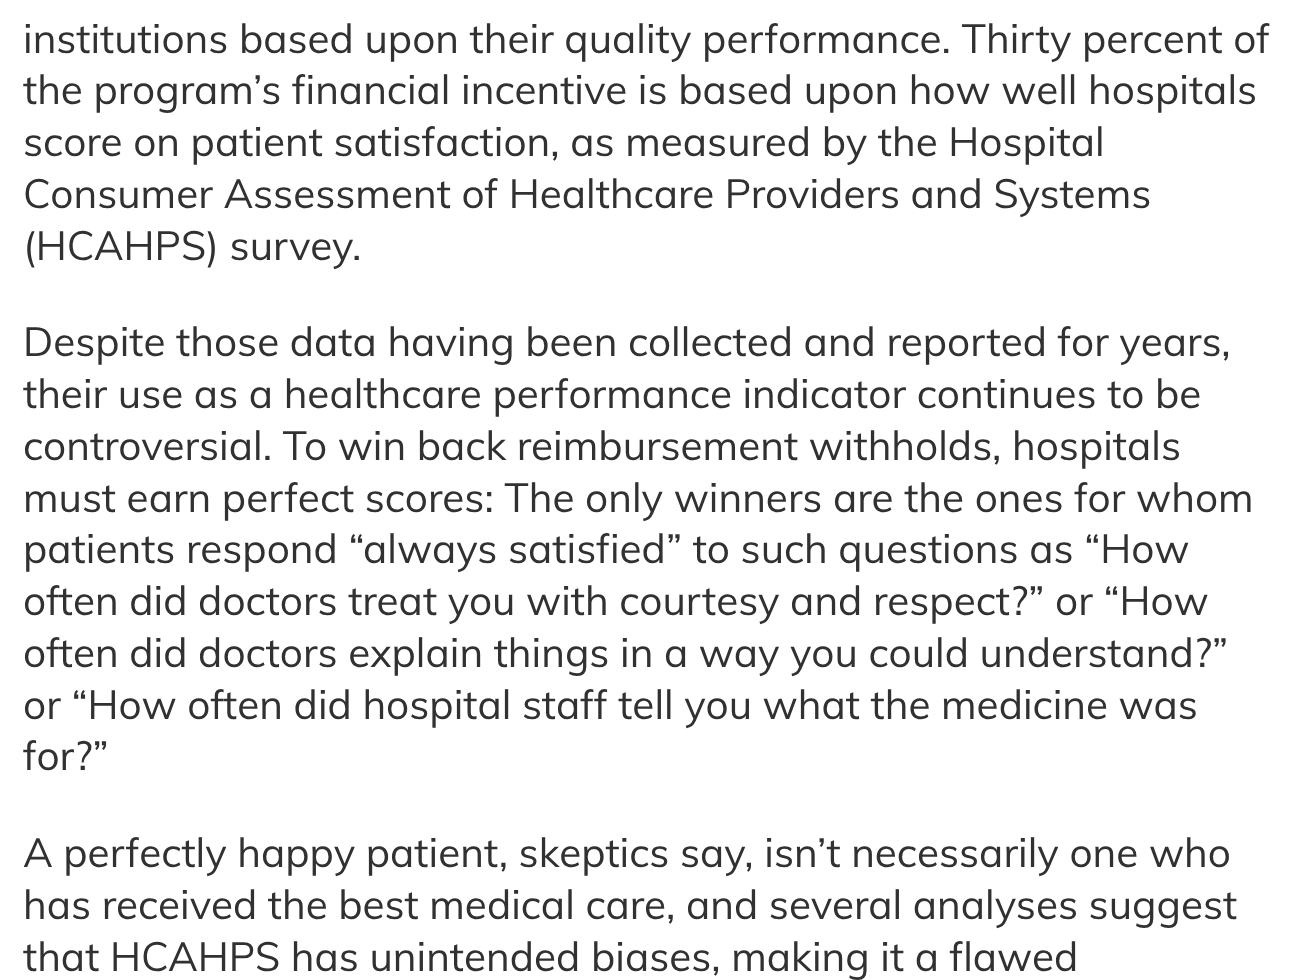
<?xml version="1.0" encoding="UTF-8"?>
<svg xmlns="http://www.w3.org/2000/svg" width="1294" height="980">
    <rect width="100%" height="100%" fill="#FFFFFF"/>
    <text font-family="Muli" font-size="40.5" fill="#313131">
        <tspan x="23" y="53">institutions based upon their quality performance. Thirty percent of</tspan>
        <tspan x="23" y="104">the program’s financial incentive is based upon how well hospitals</tspan>
        <tspan x="23" y="156">score on patient satisfaction, as measured by the Hospital</tspan>
        <tspan x="23" y="208">Consumer Assessment of Healthcare Providers and Systems</tspan>
        <tspan x="23" y="260">(HCAHPS) survey.</tspan>
    </text>
    <text font-family="Muli" font-size="40.5" fill="#313131">
        <tspan x="23" y="356">Despite those data having been collected and reported for years,</tspan>
        <tspan x="23" y="408">their use as a healthcare performance indicator continues to be</tspan>
        <tspan x="23" y="460">controversial. To win back reimbursement withholds, hospitals</tspan>
        <tspan x="23" y="512">must earn perfect scores: The only winners are the ones for whom</tspan>
        <tspan x="23" y="563">patients respond “always satisfied” to such questions as “How</tspan>
        <tspan x="23" y="615">often did doctors treat you with courtesy and respect?” or “How</tspan>
        <tspan x="23" y="667">often did doctors explain things in a way you could understand?”</tspan>
        <tspan x="23" y="719">or “How often did hospital staff tell you what the medicine was</tspan>
        <tspan x="23" y="770">for?”</tspan>
    </text>
    <text font-family="Muli" font-size="40.5" fill="#313131">
        <tspan x="23" y="867">A perfectly happy patient, skeptics say, isn’t necessarily one who</tspan>
        <tspan x="23" y="919">has received the best medical care, and several analyses suggest</tspan>
        <tspan x="23" y="971">that HCAHPS has unintended biases, making it a flawed</tspan>
    </text>
</svg>
